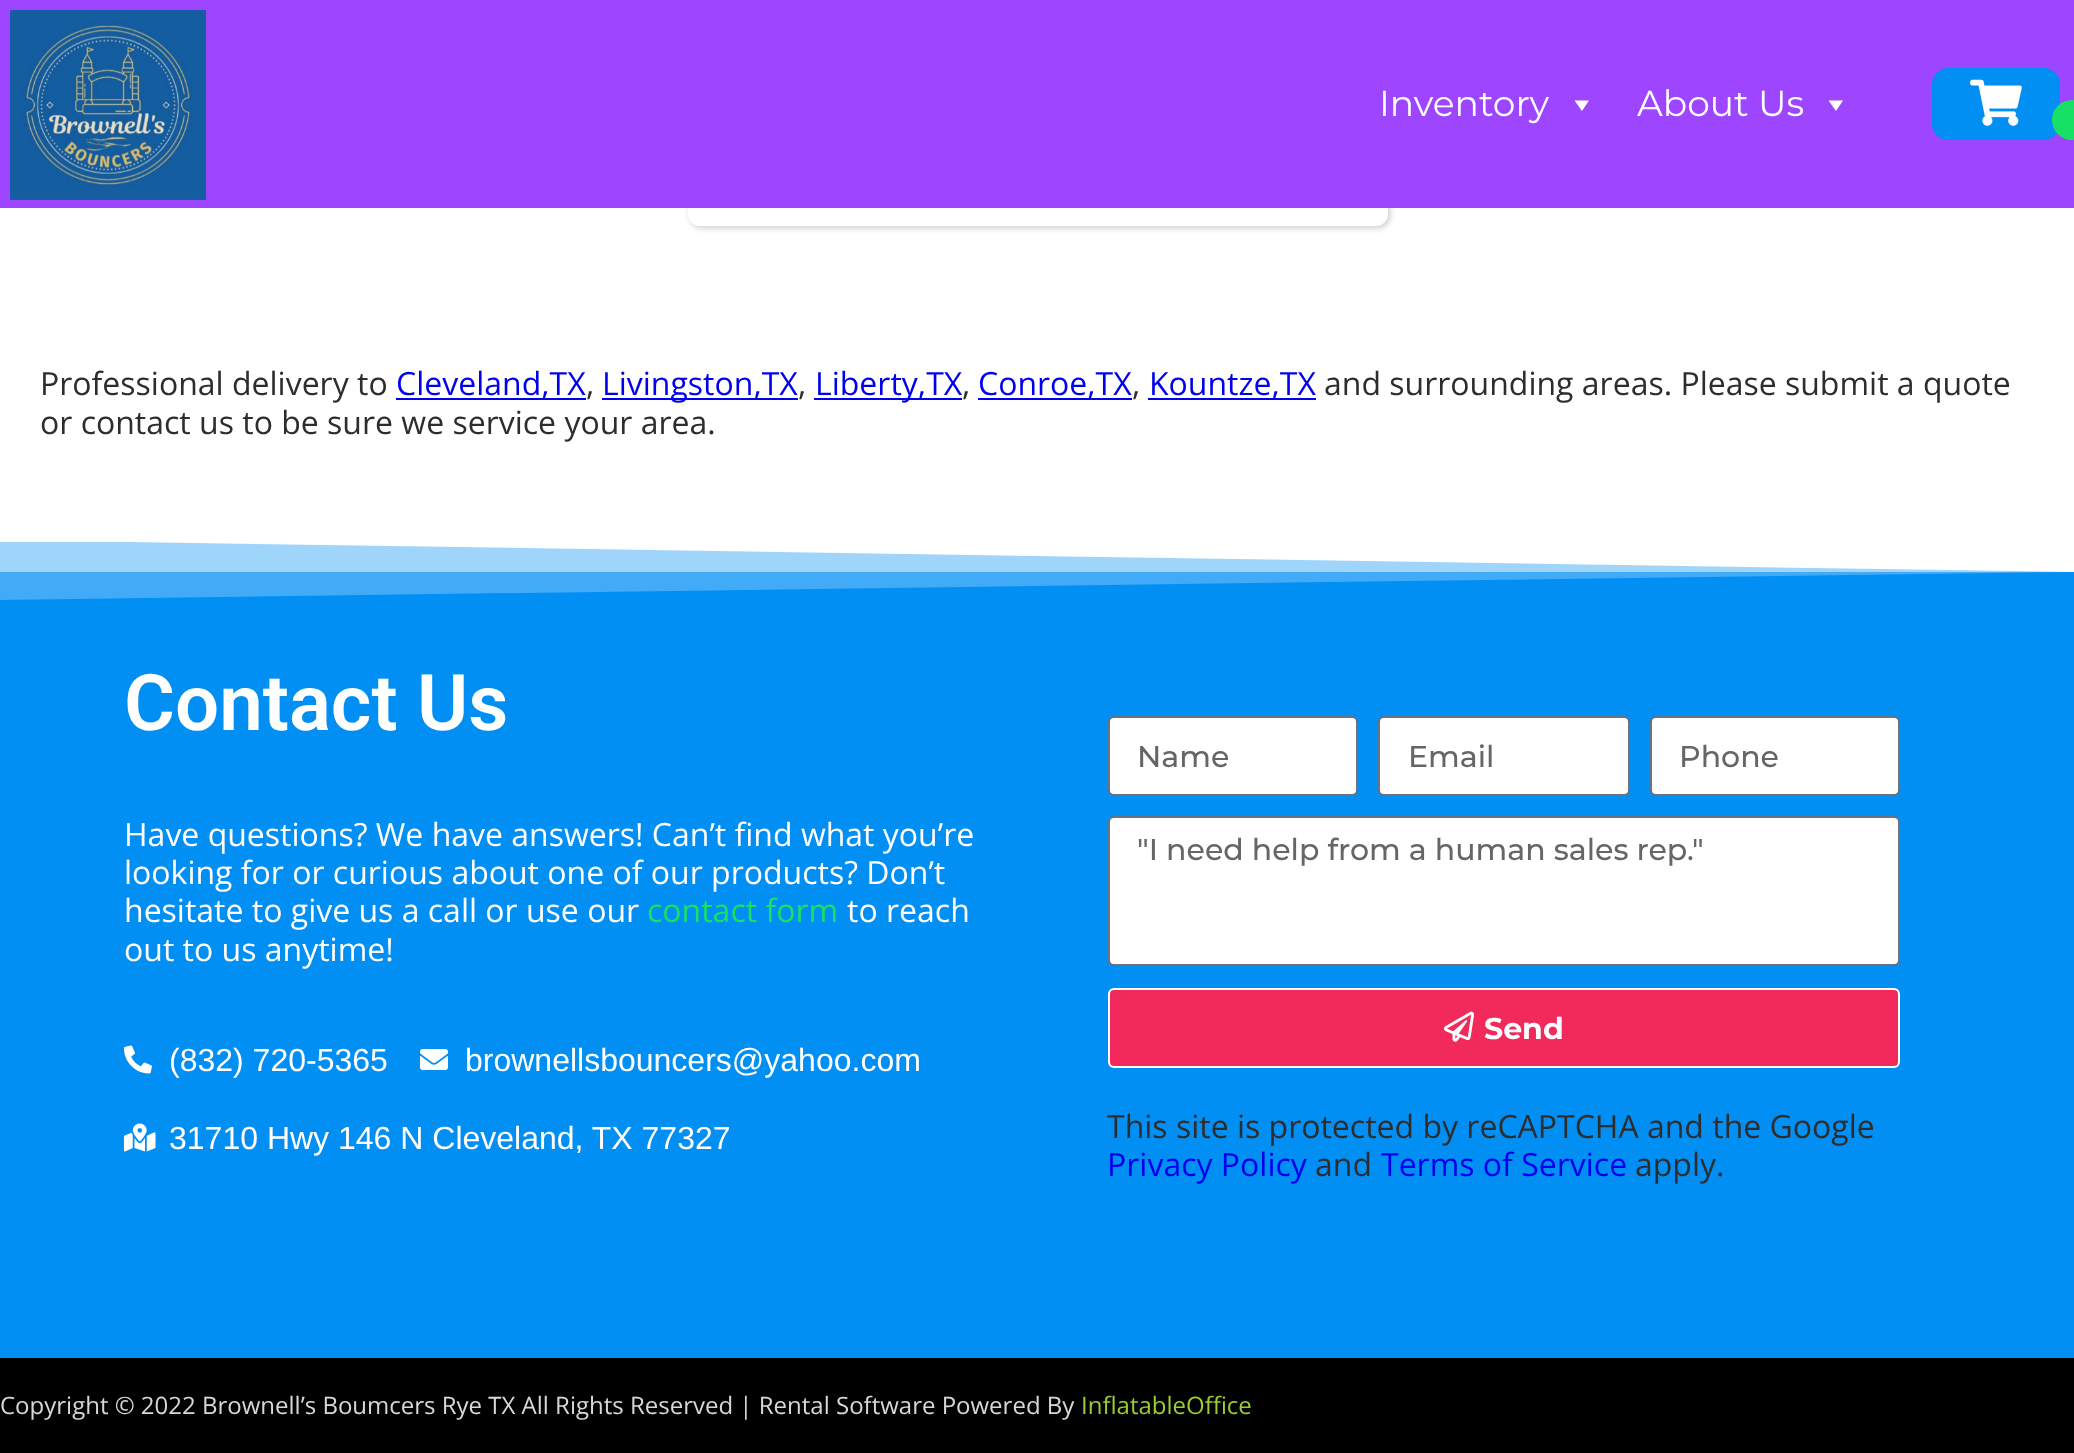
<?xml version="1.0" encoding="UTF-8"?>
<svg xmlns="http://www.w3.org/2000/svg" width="2074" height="1453">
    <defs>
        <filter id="blur1" x="-50%" y="-200%" width="200%" height="500%"><feGaussianBlur stdDeviation="3"/></filter>
    </defs>
    <rect width="100%" height="100%" fill="#FFFFFF"/>
    <rect x="690" y="-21" width="700" height="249" rx="12" fill="#000000" fill-opacity="0.2" filter="url(#blur1)"/>
    <rect x="688" y="-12" width="700" height="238" rx="12" fill="#FFFFFF"/>
    <rect x="0" y="0" width="2074" height="208" fill="#9E46FF"/>
    <image x="10" y="10" width="197" height="190" href="img_01.png"/>
    <text x="1379" y="116" font-family="Montserrat" font-size="36" fill="#FFFFFF">Inventory</text>
    <path d="M 1589 100.5 L 1582 111 L 1574.5 100.5 Z" fill="#FFFFFF"/>
    <text x="1637" y="116" font-family="Montserrat" font-size="36" fill="#FFFFFF">About Us</text>
    <path d="M 1843 100.5 L 1836 111 L 1828.5 100.5 Z" fill="#FFFFFF"/>
    <rect x="1932" y="68" width="128" height="72" rx="16" fill="#028FF4"/>
    <image x="1970" y="79" width="52" height="47" href="img_02.png"/>
    <circle cx="2072" cy="120" r="20" fill="#16E165"/>
    <text x="40" y="395" font-family="Open Sans" font-size="32" fill="#2D2D2D">Professional delivery to</text>
    <rect x="396" y="398" width="190" height="2" fill="#0000EE"/>
    <text x="396" y="395" font-family="Open Sans" font-size="32" fill="#0000EE">Cleveland,TX</text>
    <text x="586" y="395" font-family="Open Sans" font-size="32" fill="#2D2D2D">,</text>
    <rect x="602" y="398" width="196" height="2" fill="#0000EE"/>
    <text x="602" y="395" font-family="Open Sans" font-size="32" fill="#0000EE">Livingston,TX</text>
    <text x="798" y="395" font-family="Open Sans" font-size="32" fill="#2D2D2D">,</text>
    <rect x="814" y="398" width="148" height="2" fill="#0000EE"/>
    <text x="815" y="395" font-family="Open Sans" font-size="32" fill="#0000EE">Liberty,TX</text>
    <text x="962" y="395" font-family="Open Sans" font-size="32" fill="#2D2D2D">,</text>
    <rect x="978" y="398" width="154" height="2" fill="#0000EE"/>
    <text x="978" y="395" font-family="Open Sans" font-size="32" fill="#0000EE">Conroe,TX</text>
    <text x="1132" y="395" font-family="Open Sans" font-size="32" fill="#2D2D2D">,</text>
    <rect x="1148" y="398" width="168" height="2" fill="#0000EE"/>
    <text x="1149" y="395" font-family="Open Sans" font-size="32" fill="#0000EE">Kountze,TX</text>
    <text x="1324" y="395" font-family="Open Sans" font-size="32" fill="#2D2D2D">and surrounding areas. Please submit a quote</text>
    <text x="40" y="434" font-family="Open Sans" font-size="32" fill="#2D2D2D">or contact us to be sure we service your area.</text>
    <rect x="0" y="572" width="2074" height="786" fill="#028FF4"/>
    <rect x="0" y="542" width="2074" height="30" fill="#81C7FA"/>
    <path d="M 0 540 H 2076 V 572 Z" fill="#FFFFFF"/>
    <path d="M 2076 540 H 0 V 600 L 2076 572 Z" fill="#FFFFFF" fill-opacity="0.25"/>
    <text x="124" y="730" font-family="Roboto" font-size="78" font-weight="600" fill="#FFFFFF">Contact Us</text>
    <text font-family="Open Sans" font-size="32" fill="#FFFFFF">
        <tspan x="124" y="846">Have questions? We have answers! Can’t find what you’re</tspan>
        <tspan x="124" y="884">looking for or curious about one of our products? Don’t</tspan>
        <tspan x="124" y="922">hesitate to give us a call or use our</tspan>
    </text>
    <text x="647" y="922" font-family="Open Sans" font-size="32" fill="#16E165">contact form</text>
    <text x="847" y="922" font-family="Open Sans" font-size="32" fill="#FFFFFF">to reach</text>
    <text x="124" y="961" font-family="Open Sans" font-size="32" fill="#FFFFFF">out to us anytime!</text>
    <image x="124" y="1045" width="28" height="29" href="img_03.png"/>
    <text x="169" y="1071" font-family="Liberation Sans" font-size="32" fill="#FFFFFF">(832) 720-5365</text>
    <image x="420" y="1049" width="28" height="21" href="img_04.png"/>
    <text x="465" y="1071" font-family="Liberation Sans" font-size="32" fill="#FFFFFF">brownellsbouncers@yahoo.com</text>
    <image x="124" y="1123" width="32" height="29" href="img_05.png"/>
    <text x="169" y="1149" font-family="Liberation Sans" font-size="32" fill="#FFFFFF">31710 Hwy 146 N Cleveland, TX 77327</text>
    <rect x="1109" y="717" width="248" height="78" rx="5" fill="#FFFFFF" stroke="#69727D" stroke-width="2"/>
    <text x="1137" y="767" font-family="Montserrat" font-size="30" font-weight="500" fill="#666666">Name</text>
    <rect x="1379" y="717" width="250" height="78" rx="5" fill="#FFFFFF" stroke="#69727D" stroke-width="2"/>
    <text x="1408" y="767" font-family="Montserrat" font-size="30" font-weight="500" fill="#666666">Email</text>
    <rect x="1651" y="717" width="248" height="78" rx="5" fill="#FFFFFF" stroke="#69727D" stroke-width="2"/>
    <text x="1679" y="767" font-family="Montserrat" font-size="30" font-weight="500" fill="#666666">Phone</text>
    <rect x="1109" y="817" width="790" height="148" rx="5" fill="#FFFFFF" stroke="#69727D" stroke-width="2"/>
    <text x="1137" y="860" font-family="Montserrat" font-size="30" font-weight="500" fill="#666666">"I need help from a human sales rep."</text>
    <rect x="1109" y="989" width="790" height="78" rx="5" fill="#F2295B" stroke="#FFFFFF" stroke-width="2"/>
    <image x="1444" y="1011" width="31" height="31" href="img_06.png"/>
    <text x="1484" y="1039" font-family="Montserrat" font-size="30" font-weight="700" fill="#FFFFFF">Send</text>
    <text x="1107" y="1138" font-family="Open Sans" font-size="32" fill="#2D2D2D">This site is protected by reCAPTCHA and the Google</text>
    <text x="1107" y="1176" font-family="Open Sans" font-size="32" fill="#0000EE">Privacy Policy</text>
    <text x="1315" y="1176" font-family="Open Sans" font-size="32" fill="#2D2D2D">and</text>
    <text x="1381" y="1176" font-family="Open Sans" font-size="32" fill="#0000EE">Terms of Service</text>
    <text x="1635" y="1176" font-family="Open Sans" font-size="32" fill="#2D2D2D">apply.</text>
    <rect x="0" y="1358" width="2074" height="95" fill="#000000"/>
    <text x="0" y="1414" font-family="Open Sans" font-size="24" fill="#D7D7D7">Copyright © 2022 Brownell’s Boumcers Rye TX All Rights Reserved | Rental Software Powered By</text>
    <text x="1081" y="1414" font-family="Open Sans" font-size="24" fill="#9ACD32">InflatableOffice</text>
</svg>
